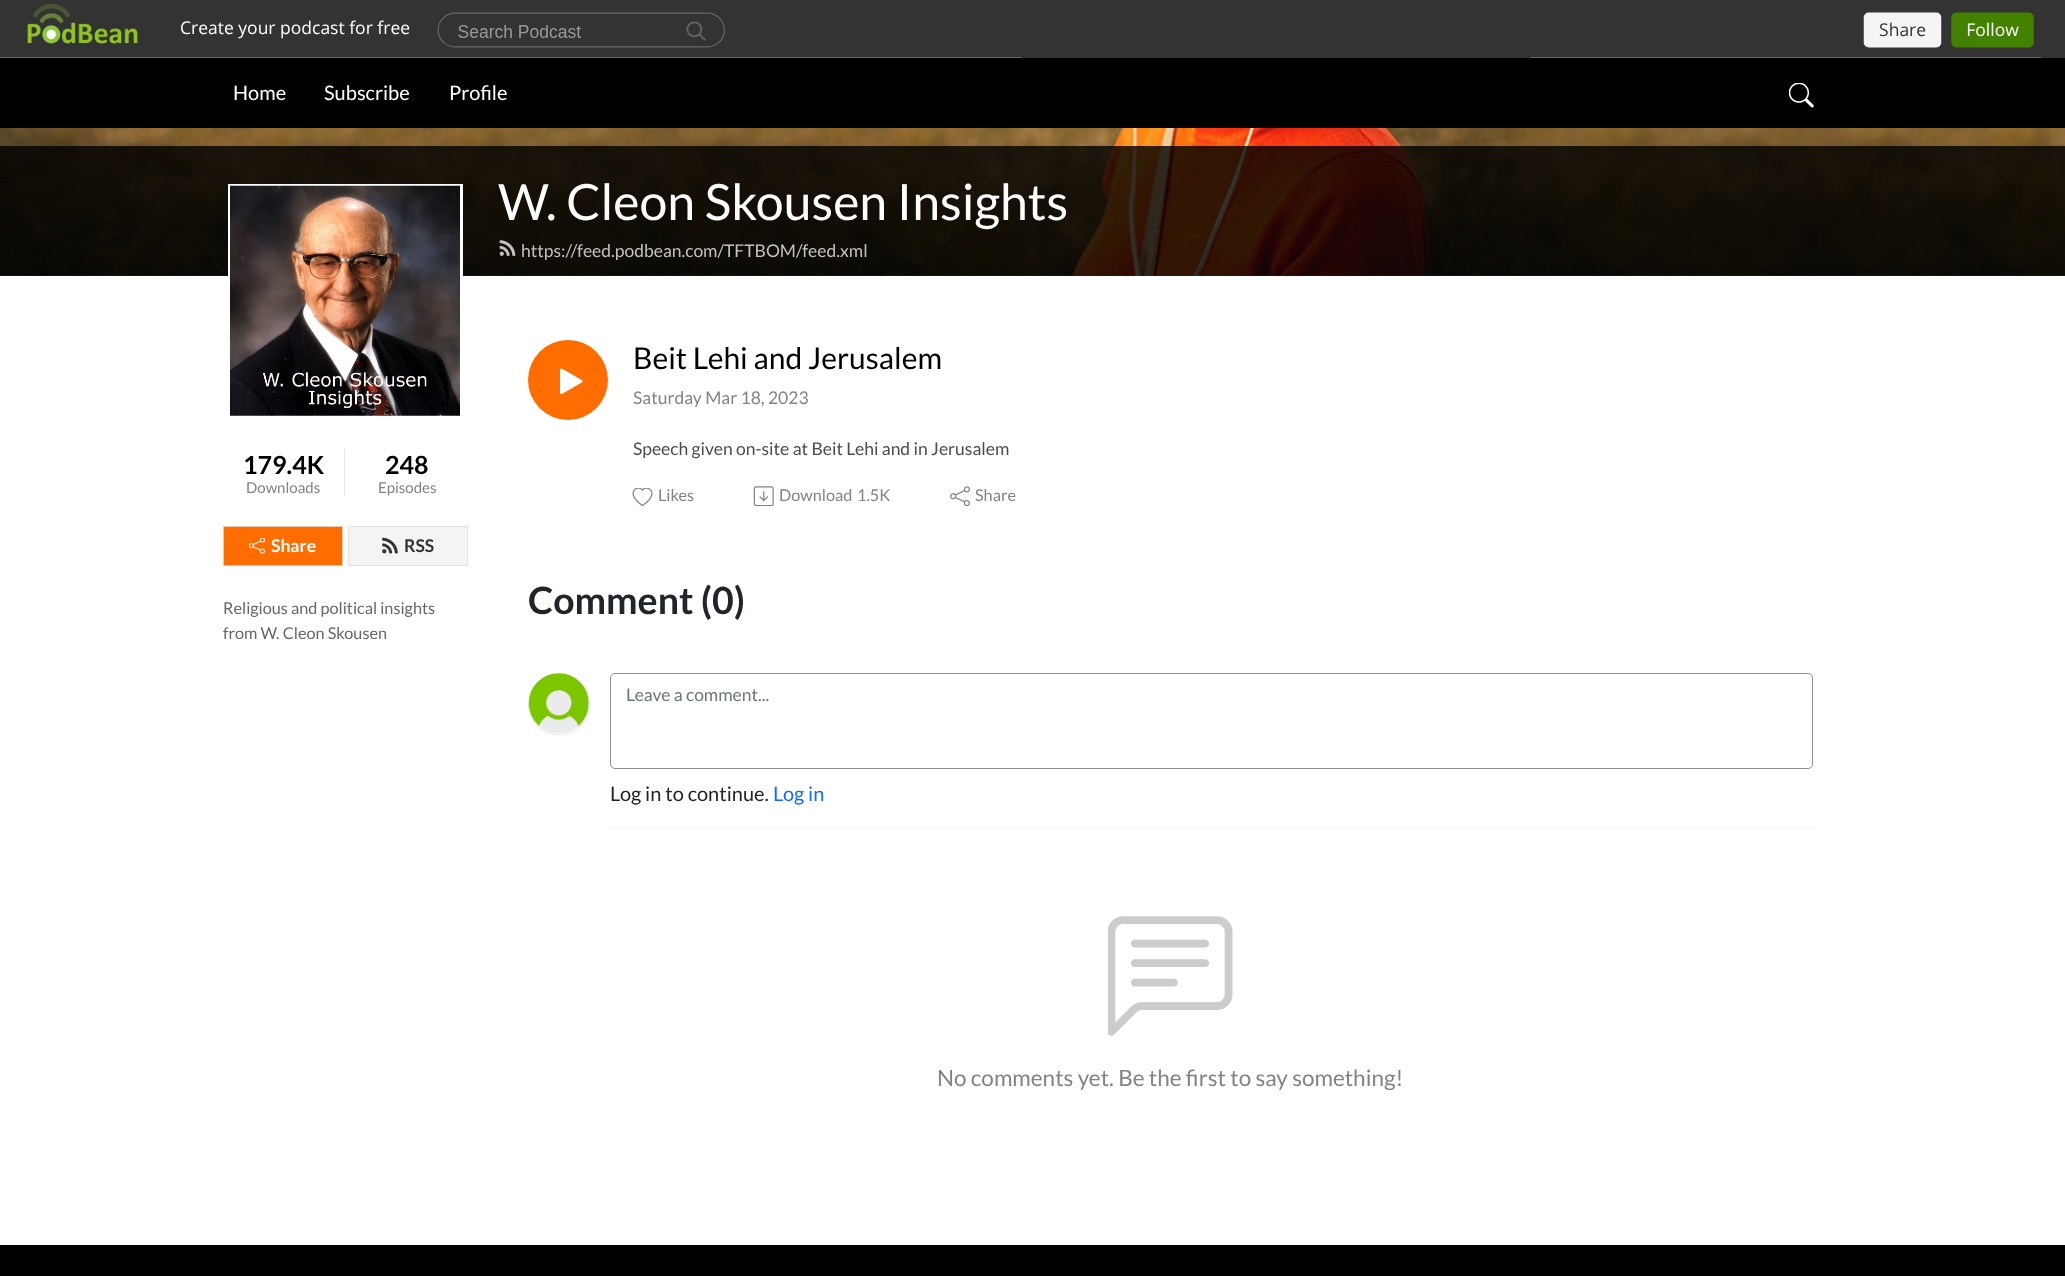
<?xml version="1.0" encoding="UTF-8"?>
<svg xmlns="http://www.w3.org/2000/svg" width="2065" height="1276">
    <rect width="100%" height="100%" fill="#FFFFFF"/>
    <rect x="0" y="0" width="2065" height="58" fill="#333333"/>
    <image x="0" y="4" width="2041" height="54" href="img_01.png"/>
    <rect x="0" y="58" width="2065" height="70" fill="#000000"/>
    <text x="233" y="100" font-family="Lato" font-size="20" fill="#FFFFFF">Home</text>
    <text x="324" y="100" font-family="Lato" font-size="20" fill="#FFFFFF">Subscribe</text>
    <text x="449" y="100" font-family="Lato" font-size="20" fill="#FFFFFF">Profile</text>
    <image x="1789" y="83" width="25" height="25" href="img_02.png"/>
    <image x="0" y="128" width="2065" height="148" href="img_03.png"/>
    <rect x="0" y="146" width="2065" height="130" fill="#000000" fill-opacity="0.8"/>
    <text x="498" y="220" font-family="Lato" font-size="50" fill="#FFFFFF">W. Cleon Skousen Insights</text>
    <image x="499" y="240" width="17" height="16" href="img_04.png"/>
    <text x="521" y="257" font-family="Lato" font-size="17.5" fill="#C3C2C1">https://feed.podbean.com/TFTBOM/feed.xml</text>
    <rect x="229.5" y="185.5" width="232" height="232" fill="none" stroke="#FFFFFF" stroke-width="3"/>
    <image x="230" y="185" width="230" height="231" href="img_05.png"/>
    <text x="243" y="474" font-family="Lato" font-size="25" font-weight="700" fill="#000000">179.4K</text>
    <text x="246" y="493" font-family="Lato" font-size="15" fill="#838383">Downloads</text>
    <rect x="344" y="449" width="1" height="47" fill="#E6E6E6"/>
    <text x="385" y="474" font-family="Lato" font-size="25" font-weight="700" fill="#000000">248</text>
    <text x="378" y="493" font-family="Lato" font-size="15" fill="#838383">Episodes</text>
    <rect x="223.5" y="526.5" width="119" height="39" fill="#FF6D00" stroke="#E8CBB5"/>
    <image x="249" y="538" width="16" height="16" href="img_06.png"/>
    <text x="271" y="552" font-family="Lato" font-size="17.5" font-weight="700" fill="#FFFFFF">Share</text>
    <rect x="348.5" y="526.5" width="119" height="39" fill="#F4F4F4" stroke="#E2E2E2"/>
    <image x="382" y="537" width="16" height="17" href="img_07.png"/>
    <text x="404" y="552" font-family="Lato" font-size="17.5" font-weight="700" fill="#333333">RSS</text>
    <text font-family="Lato" font-size="16.25" fill="#646669">
        <tspan x="223" y="614">Religious and political insights</tspan>
        <tspan x="223" y="639">from W. Cleon Skousen</tspan>
    </text>
    <circle cx="568" cy="380" r="40" fill="#FF6D00"/>
    <image x="560" y="368" width="23" height="26" href="img_08.png"/>
    <text x="633" y="369" font-family="Lato" font-size="30" fill="#000000">Beit Lehi and Jerusalem</text>
    <text x="633" y="404" font-family="Lato" font-size="17.5" fill="#838383">Saturday Mar 18, 2023</text>
    <text x="633" y="455" font-family="Lato" font-size="17.5" fill="#4C4C4C">Speech given on-site at Beit Lehi and in Jerusalem</text>
    <image x="632" y="488" width="21" height="19" href="img_09.png"/>
    <text x="658" y="501" font-family="Lato" font-size="16.25" fill="#838383">Likes</text>
    <image x="753" y="486" width="21" height="20" href="img_10.png"/>
    <text x="779" y="501" font-family="Lato" font-size="16.25" fill="#838383">Download</text>
    <text x="857" y="501" font-family="Lato" font-size="16.25" fill="#838383">1.5K</text>
    <image x="950" y="486" width="20" height="20" href="img_11.png"/>
    <text x="975" y="501" font-family="Lato" font-size="16.25" fill="#838383">Share</text>
    <text x="528" y="614" font-family="Lato" font-size="37.5" font-weight="700" fill="#212529">Comment (0)</text>
    <circle cx="559" cy="704" r="30.5" fill="none" stroke="#E3E3E3"/>
    <image x="528" y="673" width="61" height="60" href="img_12.png"/>
    <rect x="610" y="828" width="1203" height="1" fill="#F5F5F5"/>
    <rect x="610.5" y="673.5" width="1202" height="95" rx="4.5" fill="none" stroke="#909090"/>
    <text x="626" y="701" font-family="Lato" font-size="17.5" fill="#6C757D">Leave a comment...</text>
    <text x="610" y="801" font-family="Lato" font-size="20" fill="#212529">Log in to continue.</text>
    <text x="773" y="801" font-family="Lato" font-size="20" fill="#0D6EFD">Log in</text>
    <image x="1108" y="916" width="125" height="120" href="img_13.png"/>
    <text x="937" y="1086" font-family="Lato" font-size="22.5" fill="#838383">No comments yet. Be the first to say something!</text>
    <rect x="0" y="1245" width="2065" height="31" fill="#000000"/>
</svg>
